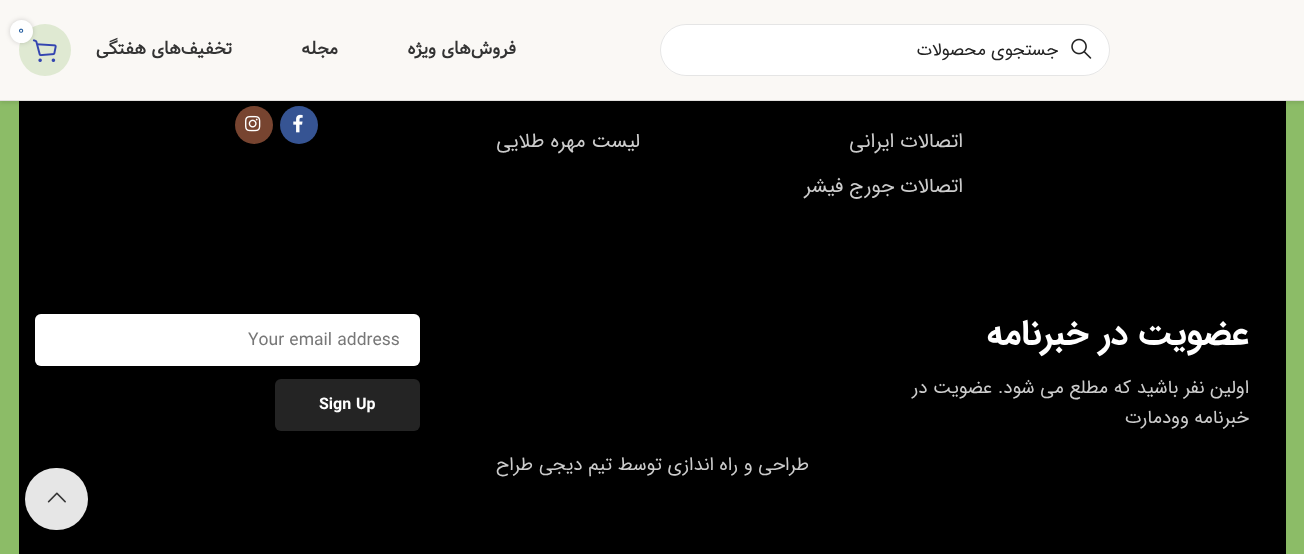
<?xml version="1.0" encoding="UTF-8"?>
<svg xmlns="http://www.w3.org/2000/svg" width="1304" height="554">
    <defs>
        <filter id="blur1" x="-50%" y="-200%" width="200%" height="500%"><feGaussianBlur stdDeviation="2"/></filter>
        <filter id="blur2" x="-50%" y="-200%" width="200%" height="500%"><feGaussianBlur stdDeviation="2.5"/></filter>
    </defs>
    <rect width="100%" height="100%" fill="#8CBC67"/>
    <rect x="19" y="101" width="1267" height="453" fill="#000000"/>
    <circle cx="299" cy="125" r="19" fill="#365493"/>
    <circle cx="254" cy="125" r="19" fill="#774430"/>
    <rect x="0" y="1" width="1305" height="102" fill="#000000" fill-opacity="0.1" filter="url(#blur1)"/>
    <rect x="0" y="0" width="1304" height="100" fill="#FAF8F5"/>
    <rect x="0" y="100" width="1304" height="1" fill="#E1DFDD"/>
    <circle cx="45" cy="50" r="26" fill="#DFE9D2"/>
    <image x="32" y="39" width="25" height="23" href="img_01.png"/>
    <rect x="10" y="20" width="23" height="23" rx="11.5" fill="#000000" fill-opacity="0.17" filter="url(#blur2)"/>
    <circle cx="21.5" cy="31.5" r="11.5" fill="#FFFFFF"/>
    <text x="18" y="34" font-family="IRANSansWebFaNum" font-size="14" fill="#155299">0</text>
    <rect x="660" y="24" width="450" height="52" rx="26" fill="#FFFFFF"/>
    <rect x="660.5" y="24.5" width="449" height="51" rx="25.5" fill="none" stroke="#000000" stroke-opacity="0.1"/>
    <image x="1071" y="38" width="21" height="21" href="img_02.png"/>
    <text x="1058" y="55" font-family="IRANSansWebFaNum" font-size="17.5" direction="rtl" fill="#232323">جستجوی محصولات</text>
    <text x="516" y="54" font-family="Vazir" font-size="17.5" font-weight="700" direction="rtl" fill="#333333">فروش‌های ویژه</text>
    <text x="338" y="54" font-family="Vazir" font-size="17.5" font-weight="700" direction="rtl" fill="#333333">مجله</text>
    <text x="232" y="54" font-family="Vazir" font-size="17.5" font-weight="700" direction="rtl" fill="#333333">تخفیف‌های هفتگی</text>
    <text x="963" y="147" font-family="IRANSansWebFaNum" font-size="20" direction="rtl" fill="#CCCCCC">اتصالات ایرانی</text>
    <text x="963" y="192" font-family="IRANSansWebFaNum" font-size="20" direction="rtl" fill="#CCCCCC">اتصالات جورج فیشر</text>
    <text x="640" y="147" font-family="IRANSansWebFaNum" font-size="20" direction="rtl" fill="#CCCCCC">لیست مهره طلایی</text>
    <image x="293" y="114" width="10" height="19" href="img_03.png"/>
    <image x="245" y="115" width="16" height="17" href="img_04.png"/>
    <text x="1249" y="344" font-family="IRANSansWebFaNum" font-size="35" font-weight="700" direction="rtl" fill="#FFFFFF">عضویت در خبرنامه</text>
    <text font-family="IRANSansWebFaNum" font-size="18.75" direction="rtl" fill="#CCCCCC">
        <tspan x="1249" y="393">اولین نفر باشید که مطلع می شود. عضویت در</tspan>
        <tspan x="1249" y="423">خبرنامه وودمارت</tspan>
    </text>
    <rect x="35" y="314" width="385" height="52" rx="6" fill="#FFFFFF"/>
    <rect x="35.5" y="314.5" width="384" height="51" rx="5.5" fill="none" stroke="#FFFFFF" stroke-opacity="0.2"/>
    <text x="248" y="345" font-family="IRANSansWebFaNum" font-size="17.5" fill="#777777">Your email address</text>
    <rect x="275" y="379" width="145" height="52" rx="6" fill="#242424"/>
    <text x="319" y="409" font-family="IRANSansWebFaNum" font-size="16" font-weight="700" fill="#FFFFFF">Sign Up</text>
    <text x="809" y="470" font-family="IRANSansWebFaNum" font-size="18.75" direction="rtl" fill="#CCCCCC">طراحی و راه اندازی توسط تیم دیجی طراح</text>
    <rect x="25" y="468" width="63" height="62" rx="31" fill="#E6E6E6"/>
    <image x="47" y="492" width="19" height="11" href="img_05.png"/>
</svg>
